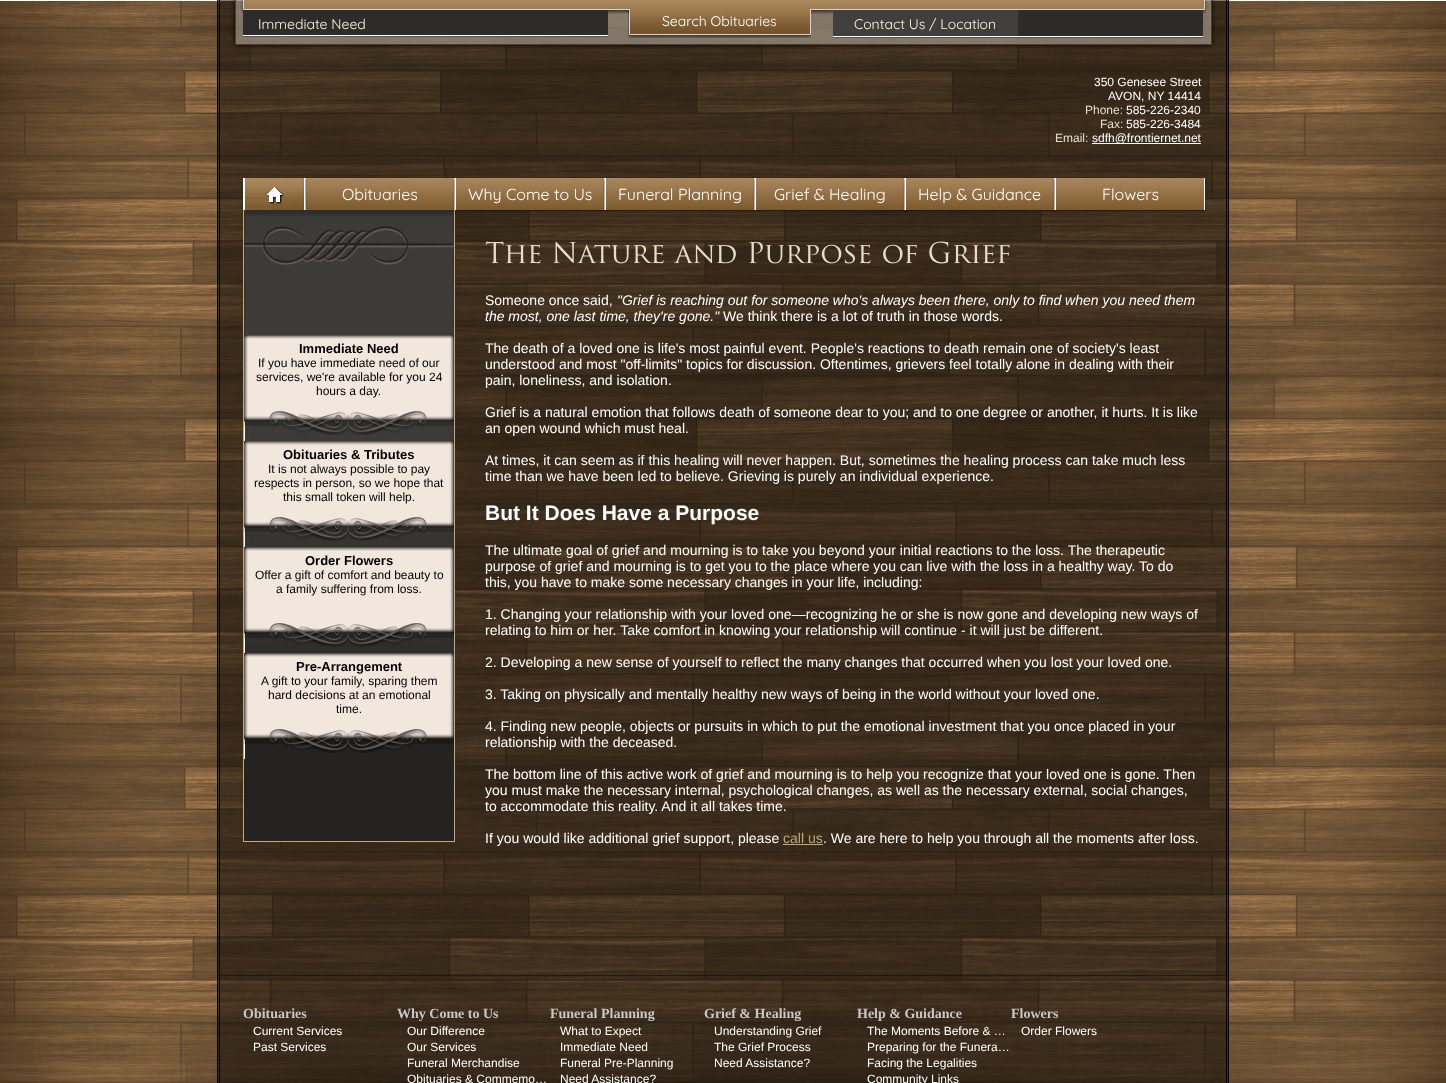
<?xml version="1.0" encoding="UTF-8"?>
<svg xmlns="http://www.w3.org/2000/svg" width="1446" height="1083">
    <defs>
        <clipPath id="clip1"><path d="M 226 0 H 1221 V 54 H 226 Z M 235 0 H 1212 V 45 H 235 Z" clip-rule="evenodd"/></clipPath>
        <filter id="blur1" x="-50%" y="-200%" width="200%" height="500%"><feGaussianBlur stdDeviation="2.5"/></filter>
        <filter id="blur2" x="-50%" y="-200%" width="200%" height="500%"><feGaussianBlur stdDeviation="1"/></filter>
        <linearGradient id="g1" gradientUnits="userSpaceOnUse" x1="380" y1="178" x2="380" y2="210"><stop offset="0" stop-color="#AB875D"/><stop offset="1" stop-color="#7D5A2D"/></linearGradient>
        <clipPath id="clip2"><path d="M 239 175 H 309 V 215 H 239 Z M 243 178 H 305 V 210 H 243 Z" clip-rule="evenodd"/></clipPath>
        <linearGradient id="g2" gradientUnits="userSpaceOnUse" x1="530" y1="178" x2="530" y2="210"><stop offset="0" stop-color="#AB875D"/><stop offset="1" stop-color="#7D5A2D"/></linearGradient>
        <linearGradient id="g3" gradientUnits="userSpaceOnUse" x1="680" y1="178" x2="680" y2="210"><stop offset="0" stop-color="#AB875D"/><stop offset="1" stop-color="#7D5A2D"/></linearGradient>
        <linearGradient id="g4" gradientUnits="userSpaceOnUse" x1="830" y1="178" x2="830" y2="210"><stop offset="0" stop-color="#AB875D"/><stop offset="1" stop-color="#7D5A2D"/></linearGradient>
        <linearGradient id="g5" gradientUnits="userSpaceOnUse" x1="980" y1="178" x2="980" y2="210"><stop offset="0" stop-color="#AB875D"/><stop offset="1" stop-color="#7D5A2D"/></linearGradient>
        <linearGradient id="g6" gradientUnits="userSpaceOnUse" x1="1130" y1="178" x2="1130" y2="210"><stop offset="0" stop-color="#AB875D"/><stop offset="1" stop-color="#7D5A2D"/></linearGradient>
    </defs>
    <rect width="100%" height="100%" fill="#FFFFFF"/>
    <image x="0" y="1" width="1446" height="1053" href="img_01.png"/>
    <image x="218" y="0" width="1010" height="976" href="img_04.png"/>
    <g clip-path="url(#clip1)">
        <rect x="235" y="0" width="977" height="45" fill="#000000" filter="url(#blur1)"/>
    </g>
    <rect x="236" y="0" width="975" height="44" fill="#C9BBAB" fill-opacity="0.53"/>
    <image x="240" y="0" width="968" height="14" href="img_02.png"/>
    <rect x="1211" y="0" width="1" height="45" fill="#483F34"/>
    <rect x="235" y="44" width="977" height="1" fill="#483F34"/>
    <rect x="235" y="0" width="1" height="45" fill="#483F34"/>
    <image x="628" y="9" width="183" height="29" href="img_03.png"/>
    <text x="662" y="26" font-family="Quicksand" font-size="14" fill="#FFFFFF">Search Obituaries</text>
    <rect x="833" y="37" width="370" height="1" fill="#535353"/>
    <rect x="1018" y="10" width="185" height="26" fill="#2C2B28"/>
    <rect x="833" y="36" width="370" height="1" fill="#FFFFFF"/>
    <rect x="243" y="36" width="365" height="1" fill="#535353"/>
    <rect x="243" y="10" width="365" height="25" fill="#2E2C2A"/>
    <rect x="243" y="35" width="365" height="1" fill="#FFFFFF"/>
    <text x="258" y="29" font-family="Quicksand" font-size="14" fill="#FFF7DC">Immediate Need</text>
    <rect x="833" y="10" width="185" height="26" fill="#403F3E"/>
    <text x="854" y="29" font-family="Quicksand" font-size="14" fill="#FFF7DC">Contact Us / Location</text>
    <rect x="1226" y="0" width="1" height="976" fill="#000000"/>
    <image x="0" y="1054" width="1446" height="29" href="img_14.png"/>
    <rect x="1228" y="0" width="1" height="1083" fill="#000000"/>
    <rect x="217" y="0" width="1" height="1083" fill="#000000"/>
    <rect x="219" y="0" width="1" height="976" fill="#000000"/>
    <text x="1094" y="86" font-family="Liberation Sans" font-size="12" fill="#FFFFFF">350 Genesee Street</text>
    <text x="1108" y="100" font-family="Liberation Sans" font-size="12" fill="#FFFFFF">AVON, NY 14414</text>
    <text x="1085" y="114" font-family="Liberation Sans" font-size="12" fill="#E6DECB">Phone:</text>
    <text x="1126" y="114" font-family="Liberation Sans" font-size="12" fill="#FFFFFF">585-226-2340</text>
    <text x="1100" y="128" font-family="Liberation Sans" font-size="12" fill="#E6DECB">Fax:</text>
    <text x="1126" y="128" font-family="Liberation Sans" font-size="12" fill="#FFFFFF">585-226-3484</text>
    <text x="1055" y="142" font-family="Liberation Sans" font-size="12" fill="#E6DECB">Email:</text>
    <rect x="1092" y="143" width="109" height="1" fill="#FFFFFF"/>
    <text x="1092" y="142" font-family="Liberation Sans" font-size="12" fill="#FFFFFF">sdfh@frontiernet.net</text>
    <image x="245" y="178" width="59" height="32" href="img_05.png"/>
    <rect x="305" y="179" width="150" height="32" fill="#131313" filter="url(#blur2)"/>
    <rect x="306" y="178" width="148" height="32" fill="url(#g1)"/>
    <rect x="305" y="178" width="1" height="32" fill="#FFFFFF"/>
    <g clip-path="url(#clip2)">
        <rect x="243" y="179" width="62" height="32" fill="#131313" filter="url(#blur2)"/>
    </g>
    <image x="267" y="187" width="17" height="17" href="img_06.png"/>
    <rect x="304" y="178" width="1" height="32" fill="#FFFFFF"/>
    <rect x="243" y="178" width="2" height="32" fill="#FFFFFF"/>
    <rect x="454" y="178" width="1" height="32" fill="#FFFFFF"/>
    <text x="342" y="200" font-family="Quicksand" font-size="16" fill="#FFFFFF">Obituaries</text>
    <rect x="455" y="179" width="150" height="32" fill="#131313" filter="url(#blur2)"/>
    <rect x="456" y="178" width="148" height="32" fill="url(#g2)"/>
    <rect x="604" y="178" width="1" height="32" fill="#FFFFFF"/>
    <rect x="455" y="178" width="1" height="32" fill="#FFFFFF"/>
    <text x="468" y="200" font-family="Quicksand" font-size="16" fill="#FFFFFF">Why Come to Us</text>
    <rect x="605" y="179" width="150" height="32" fill="#131313" filter="url(#blur2)"/>
    <rect x="606" y="178" width="148" height="32" fill="url(#g3)"/>
    <rect x="754" y="178" width="1" height="32" fill="#FFFFFF"/>
    <rect x="605" y="178" width="1" height="32" fill="#FFFFFF"/>
    <text x="618" y="200" font-family="Quicksand" font-size="16" fill="#FFFFFF">Funeral Planning</text>
    <rect x="755" y="179" width="150" height="32" fill="#131313" filter="url(#blur2)"/>
    <rect x="756" y="178" width="148" height="32" fill="url(#g4)"/>
    <rect x="904" y="178" width="1" height="32" fill="#FFFFFF"/>
    <rect x="755" y="178" width="1" height="32" fill="#FFFFFF"/>
    <text x="774" y="200" font-family="Quicksand" font-size="16" fill="#FFFFFF">Grief &amp; Healing</text>
    <rect x="905" y="179" width="150" height="32" fill="#131313" filter="url(#blur2)"/>
    <rect x="906" y="178" width="148" height="32" fill="url(#g5)"/>
    <rect x="1054" y="178" width="1" height="32" fill="#FFFFFF"/>
    <rect x="905" y="178" width="1" height="32" fill="#FFFFFF"/>
    <text x="918" y="200" font-family="Quicksand" font-size="16" fill="#FFFFFF">Help &amp; Guidance</text>
    <rect x="1055" y="179" width="150" height="32" fill="#131313" filter="url(#blur2)"/>
    <rect x="1056" y="178" width="148" height="32" fill="url(#g6)"/>
    <rect x="1204" y="178" width="1" height="32" fill="#FFFFFF"/>
    <rect x="1055" y="178" width="1" height="32" fill="#FFFFFF"/>
    <text x="1102" y="200" font-family="Quicksand" font-size="16" fill="#FFFFFF">Flowers</text>
    <rect x="244" y="727" width="210" height="114" fill="#242322"/>
    <image x="244" y="210" width="210" height="517" href="img_07.png"/>
    <rect x="454" y="210" width="1" height="632" fill="#BDAB7B"/>
    <rect x="243" y="841" width="212" height="1" fill="#BDAB7B"/>
    <rect x="243" y="210" width="1" height="632" fill="#BDAB7B"/>
    <rect x="244" y="335" width="1" height="424" fill="#FFFFFF"/>
    <image x="244" y="335" width="210" height="100" href="img_08.png"/>
    <text x="299" y="353" font-family="Liberation Sans" font-size="13" font-weight="700" fill="#000000">Immediate Need</text>
    <text x="258" y="367" font-family="Liberation Sans" font-size="12" fill="#000000">If you have immediate need of our</text>
    <text x="256" y="381" font-family="Liberation Sans" font-size="12" fill="#000000">services, we're available for you 24</text>
    <text x="316" y="395" font-family="Liberation Sans" font-size="12" fill="#000000">hours a day.</text>
    <image x="244" y="441" width="210" height="100" href="img_09.png"/>
    <text x="283" y="459" font-family="Liberation Sans" font-size="13" font-weight="700" fill="#000000">Obituaries &amp; Tributes</text>
    <text x="268" y="473" font-family="Liberation Sans" font-size="12" fill="#000000">It is not always possible to pay</text>
    <text x="254" y="487" font-family="Liberation Sans" font-size="12" fill="#000000">respects in person, so we hope that</text>
    <text x="283" y="501" font-family="Liberation Sans" font-size="12" fill="#000000">this small token will help.</text>
    <image x="244" y="547" width="210" height="100" href="img_10.png"/>
    <text x="305" y="565" font-family="Liberation Sans" font-size="13" font-weight="700" fill="#000000">Order Flowers</text>
    <text x="255" y="579" font-family="Liberation Sans" font-size="12" fill="#000000">Offer a gift of comfort and beauty to</text>
    <text x="276" y="593" font-family="Liberation Sans" font-size="12" fill="#000000">a family suffering from loss.</text>
    <image x="244" y="653" width="210" height="100" href="img_11.png"/>
    <text x="296" y="671" font-family="Liberation Sans" font-size="13" font-weight="700" fill="#000000">Pre-Arrangement</text>
    <text x="261" y="685" font-family="Liberation Sans" font-size="12" fill="#000000">A gift to your family, sparing them</text>
    <text x="268" y="699" font-family="Liberation Sans" font-size="12" fill="#000000">hard decisions at an emotional</text>
    <text x="336" y="713" font-family="Liberation Sans" font-size="12" fill="#000000">time.</text>
    <image x="485" y="241" width="525" height="23" href="img_12.png"/>
    <text x="485" y="305" font-family="Liberation Sans" font-size="14" fill="#FFFFFF">Someone once said,</text>
    <text x="617" y="305" font-family="Liberation Sans" font-size="14" font-style="italic" fill="#FFFFFF">"Grief is reaching out for someone who's always been there, only to find when you need them</text>
    <text x="485" y="321" font-family="Liberation Sans" font-size="14" font-style="italic" fill="#FFFFFF">the most, one last time, they're gone."</text>
    <text x="723" y="321" font-family="Liberation Sans" font-size="14" fill="#FFFFFF">We think there is a lot of truth in those words.</text>
    <text font-family="Liberation Sans" font-size="14" fill="#FFFFFF">
        <tspan x="485" y="353">The death of a loved one is life's most painful event. People's reactions to death remain one of society's least</tspan>
        <tspan x="485" y="369">understood and most "off-limits" topics for discussion. Oftentimes, grievers feel totally alone in dealing with their</tspan>
        <tspan x="485" y="385">pain, loneliness, and isolation.</tspan>
    </text>
    <text font-family="Liberation Sans" font-size="14" fill="#FFFFFF">
        <tspan x="485" y="417">Grief is a natural emotion that follows death of someone dear to you; and to one degree or another, it hurts. It is like</tspan>
        <tspan x="485" y="433">an open wound which must heal.</tspan>
    </text>
    <text font-family="Liberation Sans" font-size="14" fill="#FFFFFF">
        <tspan x="485" y="465">At times, it can seem as if this healing will never happen. But, sometimes the healing process can take much less</tspan>
        <tspan x="485" y="481">time than we have been led to believe. Grieving is purely an individual experience.</tspan>
    </text>
    <text x="485" y="520" font-family="Liberation Sans" font-size="21" font-weight="700" fill="#FFFFFF">But It Does Have a Purpose</text>
    <text font-family="Liberation Sans" font-size="14" fill="#FFFFFF">
        <tspan x="485" y="555">The ultimate goal of grief and mourning is to take you beyond your initial reactions to the loss. The therapeutic</tspan>
        <tspan x="485" y="571">purpose of grief and mourning is to get you to the place where you can live with the loss in a healthy way. To do</tspan>
        <tspan x="485" y="587">this, you have to make some necessary changes in your life, including:</tspan>
    </text>
    <text font-family="Liberation Sans" font-size="14" fill="#FFFFFF">
        <tspan x="485" y="619">1. Changing your relationship with your loved one—recognizing he or she is now gone and developing new ways of</tspan>
        <tspan x="485" y="635">relating to him or her. Take comfort in knowing your relationship will continue - it will just be different.</tspan>
    </text>
    <text x="485" y="667" font-family="Liberation Sans" font-size="14" fill="#FFFFFF">2. Developing a new sense of yourself to reflect the many changes that occurred when you lost your loved one.</text>
    <text x="485" y="699" font-family="Liberation Sans" font-size="14" fill="#FFFFFF">3. Taking on physically and mentally healthy new ways of being in the world without your loved one.</text>
    <text font-family="Liberation Sans" font-size="14" fill="#FFFFFF">
        <tspan x="485" y="731">4. Finding new people, objects or pursuits in which to put the emotional investment that you once placed in your</tspan>
        <tspan x="485" y="747">relationship with the deceased.</tspan>
    </text>
    <text font-family="Liberation Sans" font-size="14" fill="#FFFFFF">
        <tspan x="485" y="779">The bottom line of this active work of grief and mourning is to help you recognize that your loved one is gone. Then</tspan>
        <tspan x="485" y="795">you must make the necessary internal, psychological changes, as well as the necessary external, social changes,</tspan>
        <tspan x="485" y="811">to accommodate this reality. And it all takes time.</tspan>
    </text>
    <text x="485" y="843" font-family="Liberation Sans" font-size="14" fill="#FFFFFF">If you would like additional grief support, please</text>
    <text x="783" y="843" font-family="Liberation Sans" font-size="14" fill="#BDAB7B">call us</text>
    <rect x="783" y="844" width="40" height="1" fill="#BDAB7B"/>
    <text x="823" y="843" font-family="Liberation Sans" font-size="14" fill="#FFFFFF">. We are here to help you through all the moments after loss.</text>
    <image x="218" y="975" width="1010" height="108" href="img_13.png"/>
    <rect x="1226" y="975" width="1" height="108" fill="#000000"/>
    <rect x="219" y="975" width="1" height="108" fill="#000000"/>
    <text x="243" y="1018" font-family="Liberation Serif" font-size="14" font-weight="700" fill="#C8C8C8">Obituaries</text>
    <text font-family="Liberation Sans" font-size="12" fill="#FFFFFF">
        <tspan x="253" y="1035">Current Services</tspan>
        <tspan x="253" y="1051">Past Services</tspan>
    </text>
    <text x="397" y="1018" font-family="Liberation Serif" font-size="14" font-weight="700" fill="#C8C8C8">Why Come to Us</text>
    <text font-family="Liberation Sans" font-size="12" fill="#FFFFFF">
        <tspan x="407" y="1035">Our Difference</tspan>
        <tspan x="407" y="1051">Our Services</tspan>
        <tspan x="407" y="1067">Funeral Merchandise</tspan>
        <tspan x="407" y="1083">Obituaries &amp; Commemo…</tspan>
    </text>
    <text x="550" y="1018" font-family="Liberation Serif" font-size="14" font-weight="700" fill="#C8C8C8">Funeral Planning</text>
    <text font-family="Liberation Sans" font-size="12" fill="#FFFFFF">
        <tspan x="560" y="1035">What to Expect</tspan>
        <tspan x="560" y="1051">Immediate Need</tspan>
        <tspan x="560" y="1067">Funeral Pre-Planning</tspan>
        <tspan x="560" y="1083">Need Assistance?</tspan>
    </text>
    <text x="704" y="1018" font-family="Liberation Serif" font-size="14" font-weight="700" fill="#C8C8C8">Grief &amp; Healing</text>
    <text font-family="Liberation Sans" font-size="12" fill="#FFFFFF">
        <tspan x="714" y="1035">Understanding Grief</tspan>
        <tspan x="714" y="1051">The Grief Process</tspan>
        <tspan x="714" y="1067">Need Assistance?</tspan>
    </text>
    <text x="857" y="1018" font-family="Liberation Serif" font-size="14" font-weight="700" fill="#C8C8C8">Help &amp; Guidance</text>
    <text font-family="Liberation Sans" font-size="12" fill="#FFFFFF">
        <tspan x="867" y="1035">The Moments Before &amp; …</tspan>
        <tspan x="867" y="1051">Preparing for the Funera…</tspan>
        <tspan x="867" y="1067">Facing the Legalities</tspan>
        <tspan x="867" y="1083">Community Links</tspan>
    </text>
    <text x="1011" y="1018" font-family="Liberation Serif" font-size="14" font-weight="700" fill="#C8C8C8">Flowers</text>
    <text x="1021" y="1035" font-family="Liberation Sans" font-size="12" fill="#FFFFFF">Order Flowers</text>
</svg>
